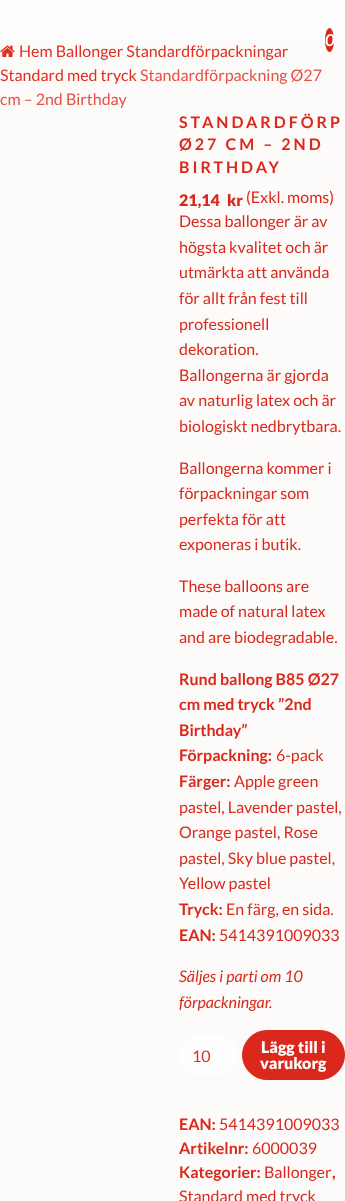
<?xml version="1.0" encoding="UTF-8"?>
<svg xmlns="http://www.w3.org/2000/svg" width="345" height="1201">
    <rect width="100%" height="100%" fill="#FCFBF9"/>
    <rect x="0" y="0" width="345" height="40" fill="#FEFEFE"/>
    <ellipse cx="329.5" cy="40" rx="4.5" ry="12" fill="#DA291C"/>
    <text x="325" y="46" font-family="Lato" font-size="16" font-weight="700" font-style="italic" fill="#FEFEFE">0</text>
    <image x="0" y="45" width="15" height="12" href="img_01.png"/>
    <text x="19" y="57" font-family="Lato" font-size="16" fill="#E22E21">Hem Ballonger Standardförpackningar</text>
    <text x="0" y="81" font-family="Lato" font-size="16" fill="#E22E21">Standard med tryck</text>
    <text x="140" y="81" font-family="Lato" font-size="16" fill="#E74F44">Standardförpackning Ø27</text>
    <text x="0" y="105" font-family="Lato" font-size="16" fill="#E74F44">cm – 2nd Birthday</text>
    <text font-family="Lato" font-size="16" font-weight="700" letter-spacing="3" fill="#DA291C">
        <tspan x="179" y="128">STANDARDFÖRP</tspan>
        <tspan x="179" y="150">Ø27 CM – 2ND</tspan>
        <tspan x="179" y="173">BIRTHDAY</tspan>
    </text>
    <text x="179" y="206" font-family="Lato" font-size="16" font-weight="900" fill="#DA291C">21,14</text>
    <text x="227" y="206" font-family="Lato" font-size="16" font-weight="900" fill="#DA291C">kr</text>
    <text x="246" y="203" font-family="Lato" font-size="16" fill="#DA291C">(Exkl. moms)</text>
    <text font-family="Lato" font-size="16" fill="#DA291C">
        <tspan x="179" y="227">Dessa ballonger är av</tspan>
        <tspan x="179" y="253">högsta kvalitet och är</tspan>
        <tspan x="179" y="278">utmärkta att använda</tspan>
        <tspan x="179" y="304">för allt från fest till</tspan>
        <tspan x="179" y="330">professionell</tspan>
        <tspan x="179" y="355">dekoration.</tspan>
        <tspan x="179" y="381">Ballongerna är gjorda</tspan>
        <tspan x="179" y="406">av naturlig latex och är</tspan>
        <tspan x="179" y="432">biologiskt nedbrytbara.</tspan>
    </text>
    <text font-family="Lato" font-size="16" fill="#DA291C">
        <tspan x="179" y="474">Ballongerna kommer i</tspan>
        <tspan x="179" y="499">förpackningar som</tspan>
        <tspan x="179" y="525">perfekta för att</tspan>
        <tspan x="179" y="550">exponeras i butik.</tspan>
    </text>
    <text font-family="Lato" font-size="16" fill="#DA291C">
        <tspan x="179" y="592">These balloons are</tspan>
        <tspan x="179" y="617">made of natural latex</tspan>
        <tspan x="179" y="643">and are biodegradable.</tspan>
    </text>
    <text font-family="Lato" font-size="16" font-weight="700" fill="#DA291C">
        <tspan x="179" y="685">Rund ballong B85 Ø27</tspan>
        <tspan x="179" y="710">cm med tryck ”2nd</tspan>
        <tspan x="179" y="736">Birthday”</tspan>
        <tspan x="179" y="761">Förpackning:</tspan>
    </text>
    <text x="276" y="761" font-family="Lato" font-size="16" fill="#DA291C">6-pack</text>
    <text x="179" y="787" font-family="Lato" font-size="16" font-weight="700" fill="#DA291C">Färger:</text>
    <text x="234" y="787" font-family="Lato" font-size="16" fill="#DA291C">Apple green</text>
    <text font-family="Lato" font-size="16" fill="#DA291C">
        <tspan x="179" y="813">pastel, Lavender pastel,</tspan>
        <tspan x="179" y="838">Orange pastel, Rose</tspan>
        <tspan x="179" y="864">pastel, Sky blue pastel,</tspan>
        <tspan x="179" y="889">Yellow pastel</tspan>
    </text>
    <text x="179" y="915" font-family="Lato" font-size="16" font-weight="700" fill="#DA291C">Tryck:</text>
    <text x="226" y="915" font-family="Lato" font-size="16" fill="#DA291C">En färg, en sida.</text>
    <text x="179" y="941" font-family="Lato" font-size="16" font-weight="700" fill="#DA291C">EAN:</text>
    <text x="219" y="941" font-family="Lato" font-size="16" fill="#DA291C">5414391009033</text>
    <text font-family="Lato" font-size="16" font-style="italic" fill="#DA291C">
        <tspan x="179" y="982">Säljes i parti om 10</tspan>
        <tspan x="179" y="1008">förpackningar.</tspan>
    </text>
    <rect x="179" y="1036" width="59" height="39" rx="19.5" fill="#FEFEFE"/>
    <text x="192" y="1062" font-family="Lato" font-size="16" fill="#E22E21">10</text>
    <rect x="242.5" y="1030.5" width="102" height="49" rx="24.5" fill="#DA291C" stroke="#DA291C"/>
    <text x="261" y="1053" font-family="Lato" font-size="16" font-weight="900" fill="#FEFEFE">Lägg till i</text>
    <text x="260" y="1069" font-family="Lato" font-size="16" font-weight="900" fill="#FEFEFE">varukorg</text>
    <text x="179" y="1130" font-family="Lato" font-size="16" font-weight="700" fill="#DA291C">EAN:</text>
    <text x="219" y="1130" font-family="Lato" font-size="16" fill="#DA291C">5414391009033</text>
    <text x="179" y="1154" font-family="Lato" font-size="16" font-weight="700" fill="#DA291C">Artikelnr:</text>
    <text x="252" y="1154" font-family="Lato" font-size="16" fill="#DA291C">6000039</text>
    <text x="179" y="1178" font-family="Lato" font-size="16" font-weight="700" fill="#DA291C">Kategorier:</text>
    <text x="264" y="1178" font-family="Lato" font-size="16" fill="#DA291C">Ballonger</text>
    <text x="332" y="1178" font-family="Lato" font-size="16" font-weight="700" fill="#DA291C">,</text>
    <text x="179" y="1202" font-family="Lato" font-size="16" fill="#DA291C">Standard med tryck</text>
</svg>
